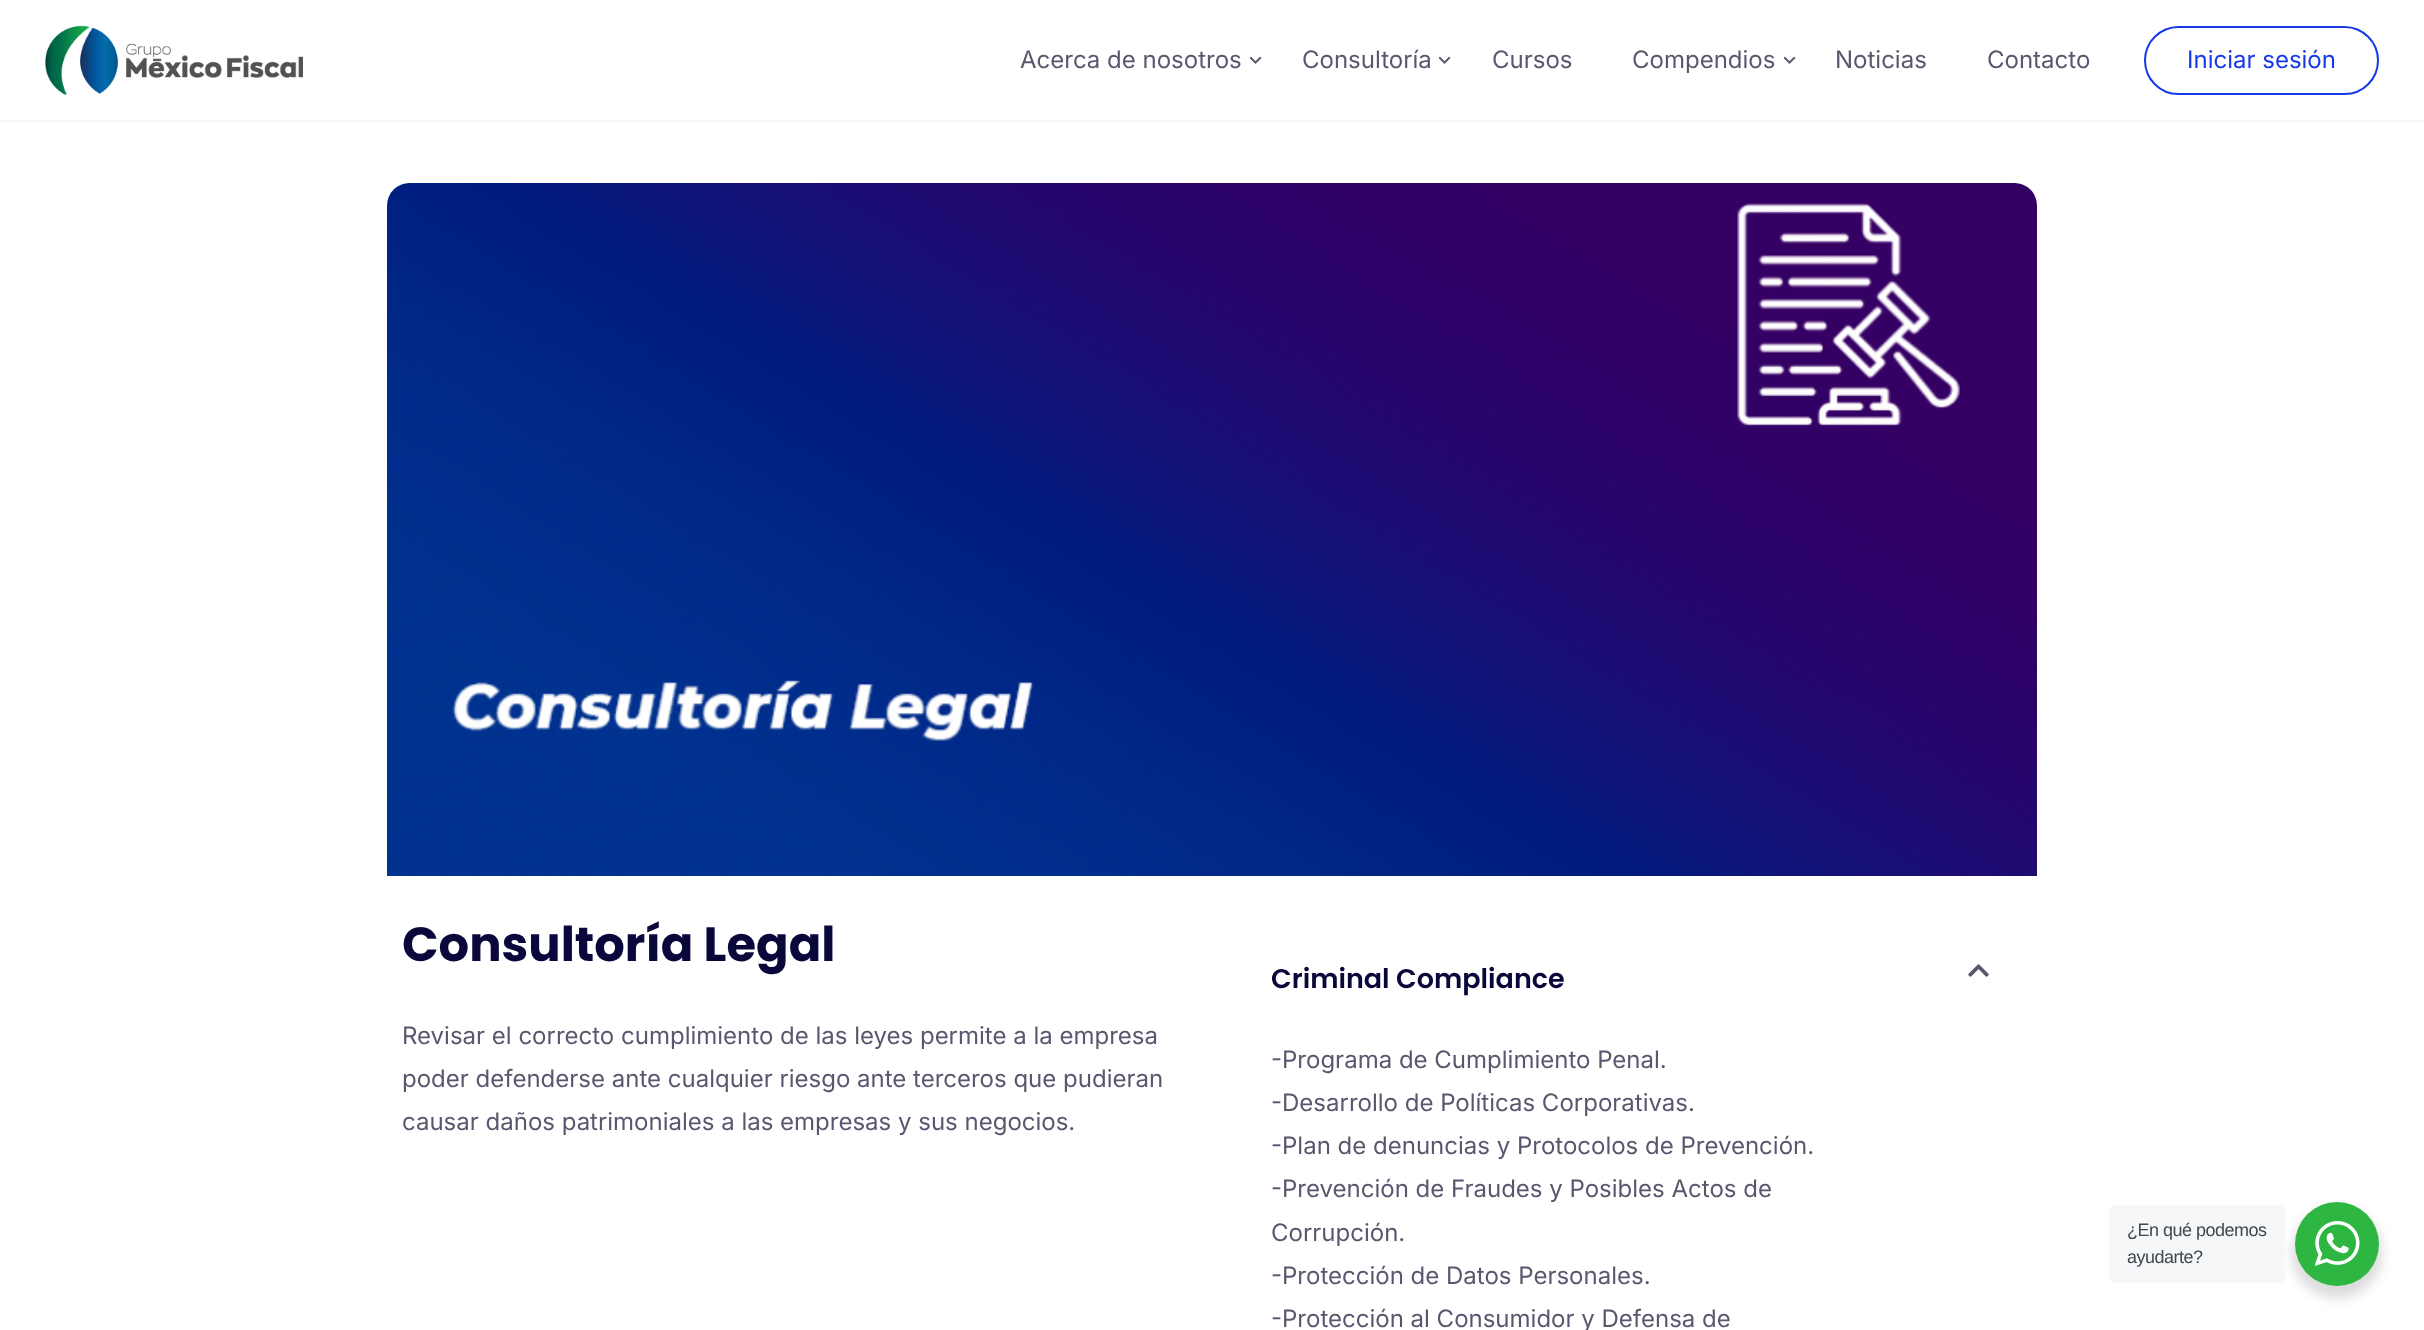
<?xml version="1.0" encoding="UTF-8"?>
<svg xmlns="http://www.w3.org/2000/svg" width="2424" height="1330">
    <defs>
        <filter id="blur1" x="-50%" y="-200%" width="200%" height="500%"><feGaussianBlur stdDeviation="6"/></filter>
    </defs>
    <rect width="100%" height="100%" fill="#FFFFFF"/>
    <rect x="0" y="120" width="2424" height="3" fill="#F8F8F8"/>
    <image x="45" y="25" width="258" height="70" href="img_01.png"/>
    <text x="1020" y="68" font-family="Inter" font-size="24" fill="#57586E">Acerca de nosotros</text>
    <image x="1250" y="56" width="12" height="8" href="img_02.png"/>
    <text x="1302" y="68" font-family="Inter" font-size="24" fill="#57586E">Consultoría</text>
    <image x="1439" y="56" width="12" height="8" href="img_02.png"/>
    <text x="1492" y="68" font-family="Inter" font-size="24" fill="#57586E">Cursos</text>
    <text x="1632" y="68" font-family="Inter" font-size="24" fill="#57586E">Compendios</text>
    <image x="1784" y="56" width="12" height="8" href="img_02.png"/>
    <text x="1835" y="68" font-family="Inter" font-size="24" fill="#57586E">Noticias</text>
    <text x="1987" y="68" font-family="Inter" font-size="24" fill="#57586E">Contacto</text>
    <rect x="2145" y="27" width="233" height="67" rx="33.5" fill="none" stroke="#1539E9" stroke-width="2"/>
    <text x="2187" y="68" font-family="Inter" font-size="24" fill="#1539E9">Iniciar sesión</text>
    <image x="387" y="183" width="1650" height="693" href="img_03.png"/>
    <text x="402" y="961" font-family="Poppins" font-size="48" font-weight="700" fill="#0A083B">Consultoría Legal</text>
    <text font-family="Inter" font-size="24" fill="#57586E">
        <tspan x="402" y="1044">Revisar el correcto cumplimiento de las leyes permite a la empresa</tspan>
        <tspan x="402" y="1087">poder defenderse ante cualquier riesgo ante terceros que pudieran</tspan>
        <tspan x="402" y="1130">causar daños patrimoniales a las empresas y sus negocios.</tspan>
    </text>
    <text x="1271" y="988" font-family="Poppins" font-size="27" font-weight="600" fill="#0A083B">Criminal Compliance</text>
    <image x="1968" y="964" width="21" height="13" href="img_04.png"/>
    <text font-family="Inter" font-size="24" fill="#57586E">
        <tspan x="1271" y="1068">-Programa de Cumplimiento Penal.</tspan>
        <tspan x="1271" y="1111">-Desarrollo de Políticas Corporativas.</tspan>
        <tspan x="1271" y="1154">-Plan de denuncias y Protocolos de Prevención.</tspan>
        <tspan x="1271" y="1197">-Prevención de Fraudes y Posibles Actos de</tspan>
        <tspan x="1271" y="1241">Corrupción.</tspan>
        <tspan x="1271" y="1284">-Protección de Datos Personales.</tspan>
        <tspan x="1271" y="1327">-Protección al Consumidor y Defensa de</tspan>
    </text>
    <rect x="2292" y="1208" width="90" height="90" rx="45" fill="#000000" fill-opacity="0.14" filter="url(#blur1)"/>
    <rect x="2109" y="1205" width="176" height="78" rx="6" fill="#F5F7F9"/>
    <text font-family="Liberation Sans" font-size="18" letter-spacing="-0.5" fill="#43474E">
        <tspan x="2127" y="1236">¿En qué podemos</tspan>
        <tspan x="2127" y="1263">ayudarte?</tspan>
    </text>
    <circle cx="2337" cy="1244" r="42" fill="#2DB742"/>
    <image x="2315" y="1221" width="45" height="45" href="img_05.png"/>
</svg>
